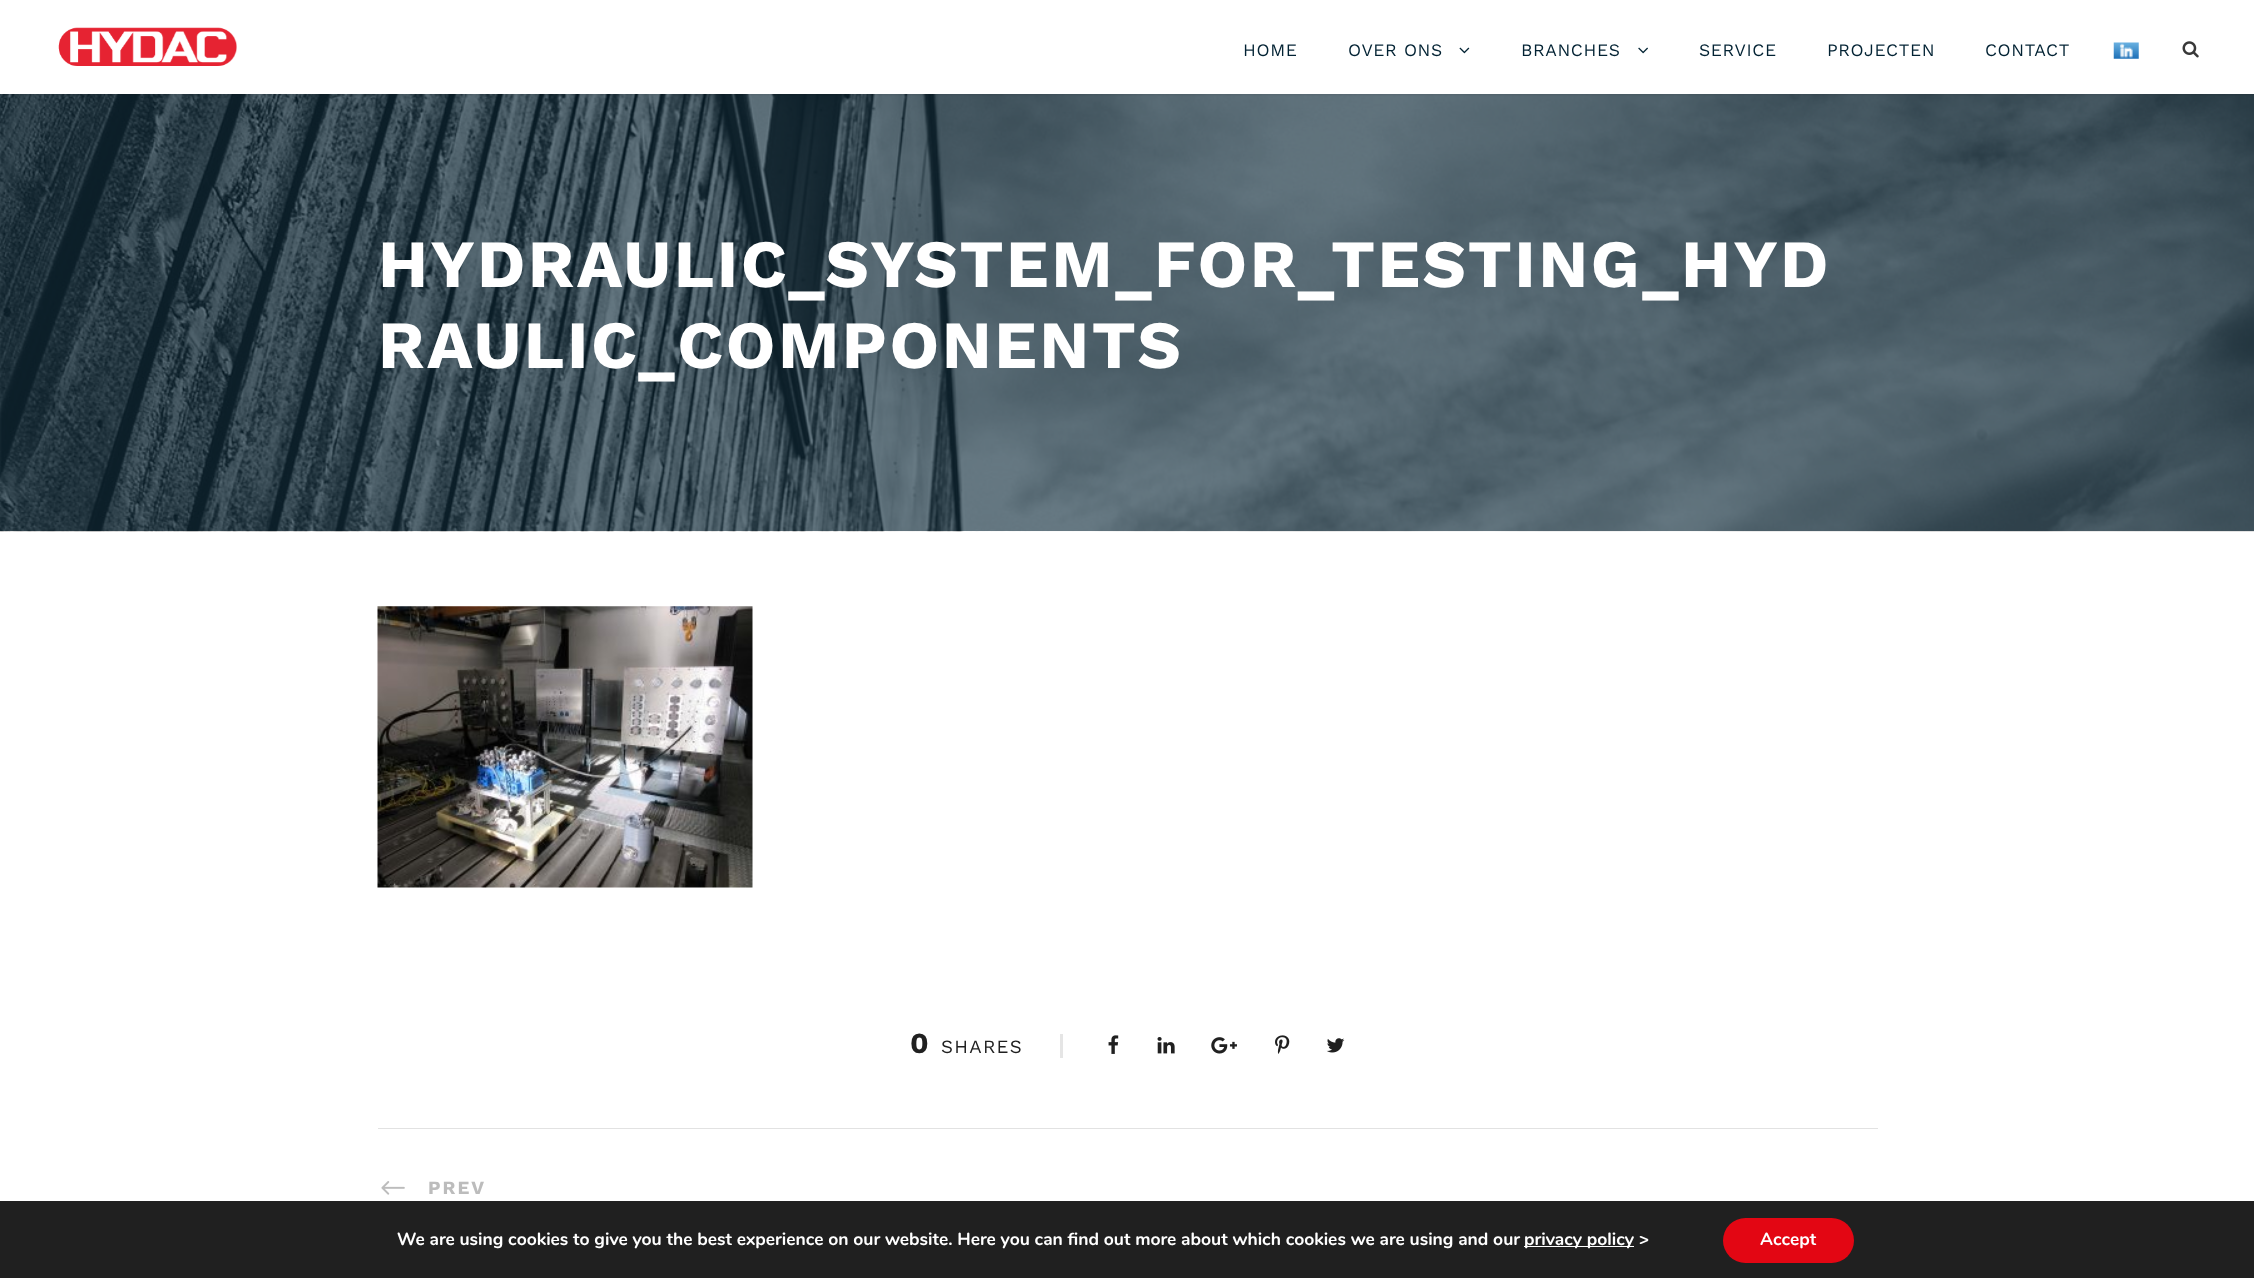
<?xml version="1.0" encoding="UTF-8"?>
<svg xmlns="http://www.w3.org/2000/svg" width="2254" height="1278">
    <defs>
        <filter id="blur1" x="-50%" y="-200%" width="200%" height="500%"><feGaussianBlur stdDeviation="1"/></filter>
    </defs>
    <rect width="100%" height="100%" fill="#FFFFFF"/>
    <image x="0" y="94" width="2254" height="438" href="img_06.png"/>
    <rect x="0" y="1" width="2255" height="94" fill="#000000" fill-opacity="0.1" filter="url(#blur1)"/>
    <rect x="0" y="0" width="2254" height="94" fill="#FFFFFF"/>
    <image x="58" y="27" width="179" height="39" href="img_01.png"/>
    <text x="1243" y="56" font-family="Work Sans" font-size="17.5" letter-spacing="0.6" fill="#022233">HOME</text>
    <text x="1348" y="56" font-family="Work Sans" font-size="17.5" letter-spacing="0.6" fill="#022233">OVER ONS</text>
    <image x="1459" y="47" width="11" height="7" href="img_02.png"/>
    <text x="1521" y="56" font-family="Work Sans" font-size="17.5" letter-spacing="0.6" fill="#022233">BRANCHES</text>
    <image x="1638" y="47" width="10" height="7" href="img_03.png"/>
    <text x="1699" y="56" font-family="Work Sans" font-size="17.5" letter-spacing="0.6" fill="#022233">SERVICE</text>
    <text x="1827" y="56" font-family="Work Sans" font-size="17.5" letter-spacing="0.6" fill="#022233">PROJECTEN</text>
    <text x="1985" y="56" font-family="Work Sans" font-size="17.5" letter-spacing="0.6" fill="#022233">CONTACT</text>
    <image x="2113" y="42" width="26" height="17" href="img_04.png"/>
    <image x="2182" y="41" width="17" height="17" href="img_05.png"/>
    <text font-family="Work Sans" font-size="67.5" font-weight="700" letter-spacing="2.5" fill="#FFFFFF">
        <tspan x="378" y="287">HYDRAULIC_SYSTEM_FOR_TESTING_HYD</tspan>
        <tspan x="378" y="368">RAULIC_COMPONENTS</tspan>
    </text>
    <image x="377" y="606" width="376" height="282" href="img_07.png"/>
    <text x="910" y="1053" font-family="Work Sans" font-size="29" font-weight="700" fill="#202020">0</text>
    <text x="941" y="1053" font-family="Work Sans" font-size="18.75" letter-spacing="1.25" fill="#202020">SHARES</text>
    <rect x="1060" y="1034" width="3" height="24" fill="#E5E5E5"/>
    <image x="1108" y="1035" width="11" height="19" href="img_08.png"/>
    <image x="1157" y="1037" width="18" height="17" href="img_09.png"/>
    <image x="1211" y="1037" width="26" height="17" href="img_10.png"/>
    <image x="1275" y="1035" width="15" height="19" href="img_11.png"/>
    <image x="1326" y="1038" width="19" height="15" href="img_12.png"/>
    <rect x="378" y="1128" width="1500" height="1" fill="#E2E2E2"/>
    <image x="381" y="1181" width="24" height="14" href="img_13.png"/>
    <text x="428" y="1194" font-family="Work Sans" font-size="18.75" font-weight="700" letter-spacing="2" fill="#BCBCBC">PREV</text>
    <rect x="0" y="1201" width="2254" height="77" fill="#202020"/>
    <text x="397" y="1245" font-family="Nunito" font-size="17.5" font-weight="700" fill="#FFFFFF">We are using cookies to give you the best experience on our website. Here you can find out more about which cookies we are using and our</text>
    <rect x="1524" y="1246" width="110" height="1" fill="#FFFFFF"/>
    <text x="1524" y="1245" font-family="Nunito" font-size="17.5" font-weight="700" fill="#FFFFFF">privacy policy &gt;</text>
    <rect x="1723" y="1218" width="131" height="45" rx="22.5" fill="#E30613"/>
    <text x="1760" y="1245" font-family="Nunito" font-size="17.5" font-weight="700" fill="#FFFFFF">Accept</text>
</svg>
